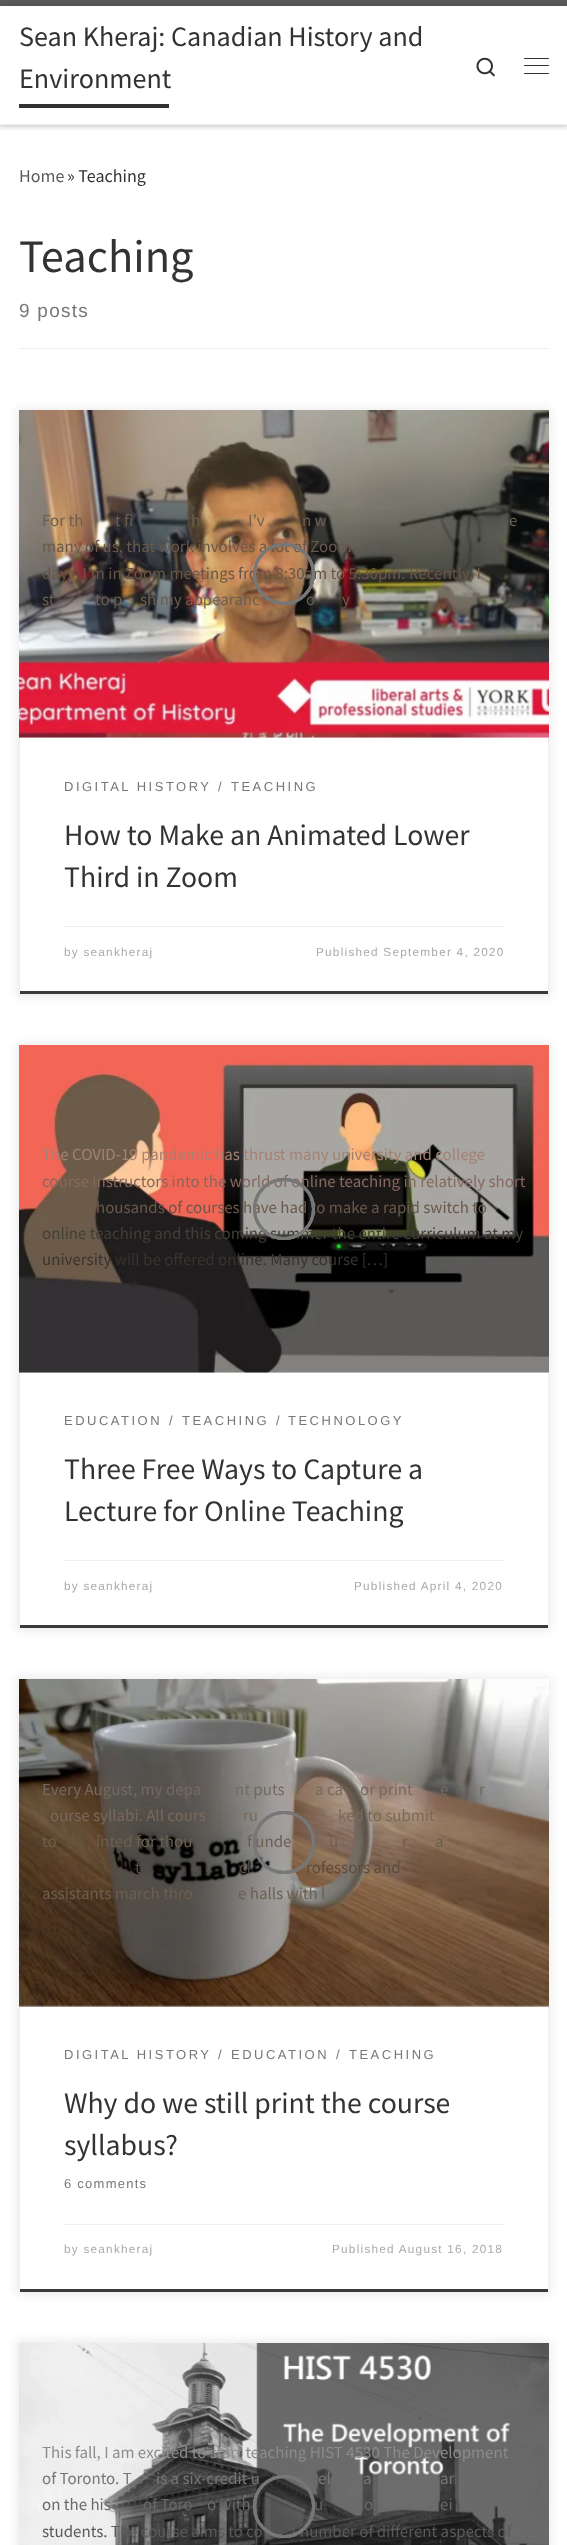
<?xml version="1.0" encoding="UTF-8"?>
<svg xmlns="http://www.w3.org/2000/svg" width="567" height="2545">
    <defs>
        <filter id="blur1" x="-50%" y="-200%" width="200%" height="500%"><feGaussianBlur stdDeviation="1"/></filter>
        <filter id="blur2" x="-50%" y="-200%" width="200%" height="500%"><feGaussianBlur stdDeviation="3"/></filter>
        <filter id="blur3" x="-50%" y="-200%" width="200%" height="500%"><feGaussianBlur stdDeviation="4"/></filter>
    </defs>
    <rect width="100%" height="100%" fill="#FFFFFF"/>
    <rect x="0" y="3" width="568" height="126" fill="#666666" fill-opacity="0.08" filter="url(#blur1)"/>
    <rect x="0" y="0" width="567" height="6" fill="#5A5A5A"/>
    <path d="M 0 125 V 126 H 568 V 8 V 125 Z" fill="#EFEFEF"/>
    <rect x="0" y="6" width="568" height="119" fill="#000000" fill-opacity="0.2" filter="url(#blur2)"/>
    <rect x="0" y="6" width="567" height="118" fill="#FFFFFF"/>
    <text font-family="Source Sans Pro" font-size="28.1" fill="#333333">
        <tspan x="19" y="46">Sean Kheraj: Canadian History and</tspan>
        <tspan x="19" y="88">Environment</tspan>
    </text>
    <rect x="19" y="104" width="150" height="4" fill="#313131"/>
    <image x="476" y="57" width="20" height="20" href="img_01.png"/>
    <rect x="524" y="58" width="25" height="1" rx="0.5" fill="#313131"/>
    <rect x="524" y="65" width="25" height="1" rx="0.5" fill="#313131"/>
    <rect x="524" y="73" width="25" height="1" rx="0.5" fill="#313131"/>
    <rect x="0" y="124" width="567" height="1" fill="#F0F0F0"/>
    <text x="19" y="182" font-family="Source Sans Pro" font-size="18" fill="#5A5A5A">Home</text>
    <text x="67" y="182" font-family="Source Sans Pro" font-size="18" fill="#333333">» Teaching</text>
    <text x="19" y="272" font-family="Source Sans Pro" font-size="46.5" fill="#333333">Teaching</text>
    <text x="19" y="317" font-family="Liberation Sans" font-size="19" letter-spacing="1.25" fill="#777777">9 posts</text>
    <rect x="19" y="348" width="530" height="1" fill="#ECEEEF"/>
    <rect x="16" y="408" width="535" height="590" fill="#000000" fill-opacity="0.07" filter="url(#blur3)"/>
    <rect x="20" y="737" width="528" height="254" fill="#FFFFFF"/>
    <rect x="19" y="991" width="530" height="3" fill="#3B3B3B"/>
    <rect x="19.5" y="410.5" width="529" height="584" fill="none" stroke="#EFEFEF"/>
    <image x="19" y="410" width="530" height="328" href="img_02.png"/>
    <text x="42" y="526" font-family="Source Sans Pro" font-size="16.9" fill="#6C5F4F">For th</text>
    <text x="115" y="526" font-family="Source Sans Pro" font-size="16.9" fill="#6C5F4F">t fi</text>
    <text x="191" y="526" font-family="Source Sans Pro" font-size="16.9" fill="#6C5F4F">h</text>
    <text x="248" y="526" font-family="Source Sans Pro" font-size="16.9" fill="#6C5F4F">I’v</text>
    <text x="302" y="526" font-family="Source Sans Pro" font-size="16.9" fill="#6C5F4F">n w</text>
    <text x="509" y="526" font-family="Source Sans Pro" font-size="16.9" fill="#6C5F4F">e</text>
    <text x="42" y="552" font-family="Source Sans Pro" font-size="16.9" fill="#6A594A">many of us, that work involves a lot of Zoom</text>
    <text x="42" y="579" font-family="Source Sans Pro" font-size="16.9" fill="#6B5644">days, I’m in Zoom meetings from 8:30am to 5:30pm. Recently, I</text>
    <text x="42" y="605" font-family="Source Sans Pro" font-size="16.9" fill="#6C5F4F">st</text>
    <text x="95" y="605" font-family="Source Sans Pro" font-size="16.9" fill="#6C5F4F">to p</text>
    <text x="140" y="605" font-family="Source Sans Pro" font-size="16.9" fill="#6C5F4F">sh my appearanc</text>
    <text x="306" y="605" font-family="Source Sans Pro" font-size="16.9" fill="#6C5F4F">o</text>
    <text x="342" y="605" font-family="Source Sans Pro" font-size="16.9" fill="#6C5F4F">y</text>
    <text x="507" y="605" font-family="Source Sans Pro" font-size="16.9" fill="#6C5F4F">.</text>
    <circle cx="284" cy="574" r="29.5" fill="none" stroke="#777777" stroke-width="3"/>
    <circle cx="284" cy="574" r="29.5" fill="none" stroke="#777777" stroke-width="3"/>
    <circle cx="284" cy="574" r="29.5" fill="none" stroke="#777777" stroke-width="3"/>
    <text x="64" y="791" font-family="Liberation Sans" font-size="13" letter-spacing="2.5" fill="#777777">DIGITAL HISTORY</text>
    <text x="218" y="791" font-family="Liberation Sans" font-size="13" letter-spacing="2.5" fill="#777777">/</text>
    <text x="231" y="791" font-family="Liberation Sans" font-size="13" letter-spacing="2.5" fill="#777777">TEACHING</text>
    <text font-family="Source Sans Pro" font-size="29.75" fill="#333333">
        <tspan x="64" y="845">How to Make an Animated Lower</tspan>
        <tspan x="64" y="887">Third in Zoom</tspan>
    </text>
    <rect x="64" y="926" width="440" height="1" fill="#ECEEEF"/>
    <text x="64" y="956" font-family="Liberation Sans" font-size="11.75" letter-spacing="1.25" fill="#AAAAAA">by seankheraj</text>
    <text x="316" y="956" font-family="Liberation Sans" font-size="11.75" letter-spacing="1.25" fill="#AAAAAA">Published September 4, 2020</text>
    <rect x="16" y="1043" width="535" height="588" fill="#000000" fill-opacity="0.07" filter="url(#blur3)"/>
    <rect x="20" y="1372" width="528" height="253" fill="#FFFFFF"/>
    <rect x="19" y="1625" width="530" height="3" fill="#3B3B3B"/>
    <rect x="19.5" y="1045.5" width="529" height="583" fill="none" stroke="#EFEFEF"/>
    <image x="19" y="1045" width="530" height="328" href="img_03.png"/>
    <text x="42" y="1160" font-family="Source Sans Pro" font-size="16.9" fill="#A48173">The COVID-19 pandemic has thrust many university and college</text>
    <text x="42" y="1187" font-family="Source Sans Pro" font-size="16.9" fill="#86685E">course instructors into the world of online teaching in relatively short</text>
    <text x="96" y="1213" font-family="Source Sans Pro" font-size="16.9" fill="#6A594A">housands of courses have had to make a rapid switch to</text>
    <text x="42" y="1239" font-family="Source Sans Pro" font-size="16.9" fill="#423F37">online teaching and this coming summer the entire curriculum at my</text>
    <text x="42" y="1265" font-family="Source Sans Pro" font-size="16.9" fill="#393330">university will be offered online. Many course […]</text>
    <circle cx="284" cy="1209" r="29.5" fill="none" stroke="#777777" stroke-width="3"/>
    <circle cx="284" cy="1209" r="29.5" fill="none" stroke="#777777" stroke-width="3"/>
    <circle cx="284" cy="1209" r="29.5" fill="none" stroke="#777777" stroke-width="3"/>
    <text x="64" y="1425" font-family="Liberation Sans" font-size="13" letter-spacing="2.5" fill="#777777">EDUCATION</text>
    <text x="169" y="1425" font-family="Liberation Sans" font-size="13" letter-spacing="2.5" fill="#777777">/</text>
    <text x="182" y="1425" font-family="Liberation Sans" font-size="13" letter-spacing="2.5" fill="#777777">TEACHING</text>
    <text x="276" y="1425" font-family="Liberation Sans" font-size="13" letter-spacing="2.5" fill="#777777">/</text>
    <text x="288" y="1425" font-family="Liberation Sans" font-size="13" letter-spacing="2.5" fill="#777777">TECHNOLOGY</text>
    <text font-family="Source Sans Pro" font-size="29.75" fill="#333333">
        <tspan x="64" y="1479">Three Free Ways to Capture a</tspan>
        <tspan x="64" y="1521">Lecture for Online Teaching</tspan>
    </text>
    <rect x="64" y="1560" width="440" height="1" fill="#ECEEEF"/>
    <text x="64" y="1590" font-family="Liberation Sans" font-size="11.75" letter-spacing="1.25" fill="#AAAAAA">by seankheraj</text>
    <text x="354" y="1590" font-family="Liberation Sans" font-size="11.75" letter-spacing="1.25" fill="#AAAAAA">Published April 4, 2020</text>
    <rect x="16" y="1676" width="535" height="619" fill="#000000" fill-opacity="0.07" filter="url(#blur3)"/>
    <rect x="20" y="2005" width="528" height="284" fill="#FFFFFF"/>
    <rect x="19" y="2289" width="530" height="3" fill="#3B3B3B"/>
    <rect x="19.5" y="1679.5" width="529" height="613" fill="none" stroke="#EFEFEF"/>
    <image x="19" y="1679" width="530" height="328" href="img_04.png"/>
    <text x="42" y="1795" font-family="Source Sans Pro" font-size="16.9" fill="#746960">Every August, my depa</text>
    <text x="235" y="1795" font-family="Source Sans Pro" font-size="16.9" fill="#746960">nt puts</text>
    <text x="315" y="1795" font-family="Source Sans Pro" font-size="16.9" fill="#746960">a ca</text>
    <text x="360" y="1795" font-family="Source Sans Pro" font-size="16.9" fill="#746960">or print</text>
    <text x="440" y="1795" font-family="Source Sans Pro" font-size="16.9" fill="#746960">e</text>
    <text x="479" y="1795" font-family="Source Sans Pro" font-size="16.9" fill="#746960">r</text>
    <text x="50" y="1821" font-family="Source Sans Pro" font-size="16.9" fill="#7A695B">ourse syllabi. All cours</text>
    <text x="243" y="1821" font-family="Source Sans Pro" font-size="16.9" fill="#7A695B">ru</text>
    <text x="338" y="1821" font-family="Source Sans Pro" font-size="16.9" fill="#7A695B">ked to submit</text>
    <text x="42" y="1847" font-family="Source Sans Pro" font-size="16.9" fill="#6C5F4F">to</text>
    <text x="96" y="1847" font-family="Source Sans Pro" font-size="16.9" fill="#6C5F4F">inted for thou</text>
    <text x="247" y="1847" font-family="Source Sans Pro" font-size="16.9" fill="#6C5F4F">f unde</text>
    <text x="329" y="1847" font-family="Source Sans Pro" font-size="16.9" fill="#6C5F4F">u</text>
    <text x="402" y="1847" font-family="Source Sans Pro" font-size="16.9" fill="#6C5F4F">r</text>
    <text x="435" y="1847" font-family="Source Sans Pro" font-size="16.9" fill="#6C5F4F">a</text>
    <text x="135" y="1873" font-family="Source Sans Pro" font-size="16.9" fill="#5C4D3F">t</text>
    <text x="239" y="1873" font-family="Source Sans Pro" font-size="16.9" fill="#5C4D3F">cl</text>
    <text x="306" y="1873" font-family="Source Sans Pro" font-size="16.9" fill="#5C4D3F">rofessors and</text>
    <text x="42" y="1899" font-family="Source Sans Pro" font-size="16.9" fill="#6C5F4F">assistants march thro</text>
    <text x="238" y="1899" font-family="Source Sans Pro" font-size="16.9" fill="#6C5F4F">e halls with l</text>
    <rect x="254.5" y="1812.5" width="59" height="60" rx="29.5" fill="none" stroke="#777777" stroke-width="3"/>
    <rect x="254.5" y="1812.5" width="59" height="60" rx="29.5" fill="none" stroke="#777777" stroke-width="3"/>
    <rect x="254.5" y="1812.5" width="59" height="60" rx="29.5" fill="none" stroke="#777777" stroke-width="3"/>
    <text x="64" y="2059" font-family="Liberation Sans" font-size="13" letter-spacing="2.5" fill="#777777">DIGITAL HISTORY</text>
    <text x="218" y="2059" font-family="Liberation Sans" font-size="13" letter-spacing="2.5" fill="#777777">/</text>
    <text x="231" y="2059" font-family="Liberation Sans" font-size="13" letter-spacing="2.5" fill="#777777">EDUCATION</text>
    <text x="336" y="2059" font-family="Liberation Sans" font-size="13" letter-spacing="2.5" fill="#777777">/</text>
    <text x="349" y="2059" font-family="Liberation Sans" font-size="13" letter-spacing="2.5" fill="#777777">TEACHING</text>
    <text font-family="Source Sans Pro" font-size="29.75" fill="#333333">
        <tspan x="64" y="2113">Why do we still print the course</tspan>
        <tspan x="64" y="2155">syllabus?</tspan>
    </text>
    <text x="64" y="2188" font-family="Liberation Sans" font-size="13" letter-spacing="1.25" fill="#777777">6 comments</text>
    <rect x="64" y="2224" width="440" height="1" fill="#ECEEEF"/>
    <text x="64" y="2253" font-family="Liberation Sans" font-size="11.75" letter-spacing="1.25" fill="#AAAAAA">by seankheraj</text>
    <text x="332" y="2253" font-family="Liberation Sans" font-size="11.75" letter-spacing="1.25" fill="#AAAAAA">Published August 16, 2018</text>
    <rect x="16" y="2340" width="535" height="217" fill="#000000" fill-opacity="0.07" filter="url(#blur3)"/>
    <image x="19" y="2343" width="530" height="202" href="img_05.png"/>
    <text x="42" y="2458" font-family="Source Sans Pro" font-size="16.9" fill="#8C8C8C">This fall, I am excited to start teaching HIST 4530 The Development</text>
    <text x="42" y="2484" font-family="Source Sans Pro" font-size="16.9" fill="#777777">of Toronto. T</text>
    <text x="156" y="2484" font-family="Source Sans Pro" font-size="16.9" fill="#777777">is a six-credit u</text>
    <text x="318" y="2484" font-family="Source Sans Pro" font-size="16.9" fill="#777777">el</text>
    <text x="363" y="2484" font-family="Source Sans Pro" font-size="16.9" fill="#777777">a</text>
    <text x="440" y="2484" font-family="Source Sans Pro" font-size="16.9" fill="#777777">ar</text>
    <text x="42" y="2510" font-family="Source Sans Pro" font-size="16.9" fill="#696969">on the his</text>
    <text x="143" y="2510" font-family="Source Sans Pro" font-size="16.9" fill="#696969">of Toro</text>
    <text x="207" y="2510" font-family="Source Sans Pro" font-size="16.9" fill="#696969">o with</text>
    <text x="314" y="2510" font-family="Source Sans Pro" font-size="16.9" fill="#696969">u</text>
    <text x="364" y="2510" font-family="Source Sans Pro" font-size="16.9" fill="#696969">o</text>
    <text x="440" y="2510" font-family="Source Sans Pro" font-size="16.9" fill="#696969">ei</text>
    <text x="42" y="2537" font-family="Source Sans Pro" font-size="16.9" fill="#5A5A5A">students. The course aims to co</text>
    <text x="288" y="2537" font-family="Source Sans Pro" font-size="16.9" fill="#5A5A5A">a number of different aspects of</text>
    <rect x="254.5" y="2476.5" width="59" height="60" rx="29.5" fill="none" stroke="#777777" stroke-width="3"/>
    <rect x="254.5" y="2476.5" width="59" height="60" rx="29.5" fill="none" stroke="#777777" stroke-width="3"/>
    <rect x="254.5" y="2476.5" width="59" height="60" rx="29.5" fill="none" stroke="#777777" stroke-width="3"/>
</svg>
